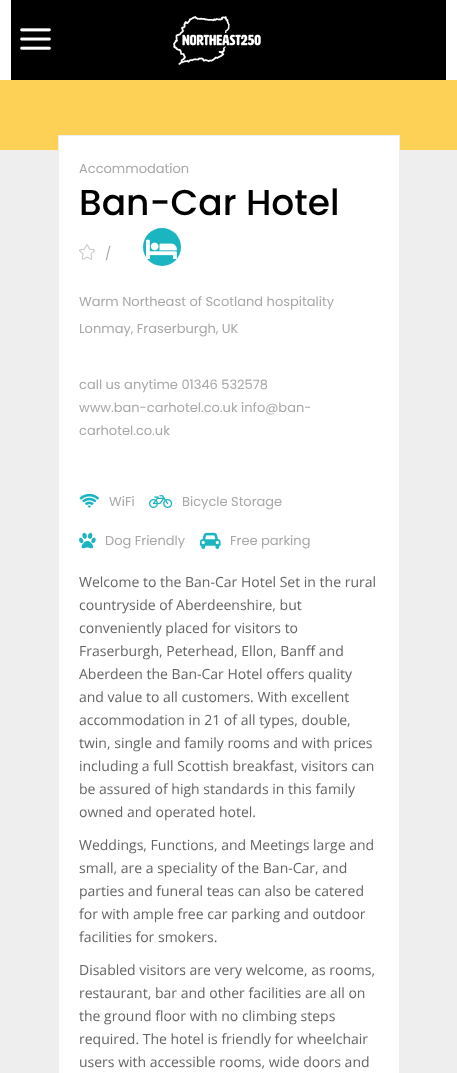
<?xml version="1.0" encoding="UTF-8"?>
<svg xmlns="http://www.w3.org/2000/svg" width="457" height="1073">
    <rect width="100%" height="100%" fill="#EEEEEE"/>
    <rect x="0" y="0" width="457" height="80" fill="#FFFFFF"/>
    <rect x="11" y="0" width="435" height="80" fill="#000000"/>
    <image x="20" y="28" width="31" height="22" href="img_01.png"/>
    <image x="173" y="16" width="88" height="49" href="img_02.png"/>
    <rect x="0" y="80" width="457" height="70" fill="#FDD056"/>
    <rect x="58.5" y="135.5" width="341" height="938" fill="#FFFFFF" stroke="#EEEEEE"/>
    <text x="79" y="173" font-family="Poppins" font-size="13" fill="#A7A7A7">Accommodation</text>
    <text x="79" y="215" font-family="Poppins" font-size="36" font-weight="500" fill="#000000">Ban-Car Hotel</text>
    <image x="79" y="244" width="16" height="16" href="img_03.png"/>
    <text x="105" y="258" font-family="Poppins" font-size="13" fill="#A7A7A7">/</text>
    <circle cx="162" cy="247" r="19" fill="#1AB5C1"/>
    <image x="146" y="239" width="31" height="20" href="img_04.png"/>
    <text x="79" y="306" font-family="Poppins" font-size="13" fill="#A7A7A7">Warm Northeast of Scotland hospitality</text>
    <text x="79" y="333" font-family="Poppins" font-size="13" fill="#A7A7A7">Lonmay, Fraserburgh, UK</text>
    <text font-family="Poppins" font-size="13" fill="#A7A7A7">
        <tspan x="79" y="389">call us anytime 01346 532578</tspan>
        <tspan x="79" y="412">www.ban-carhotel.co.uk info@ban-</tspan>
        <tspan x="79" y="435">carhotel.co.uk</tspan>
    </text>
    <image x="79" y="493" width="21" height="15" href="img_05.png"/>
    <text x="109" y="506" font-family="Poppins" font-size="13" fill="#A7A7A7">WiFi</text>
    <image x="149" y="495" width="24" height="13" href="img_06.png"/>
    <text x="182" y="506" font-family="Poppins" font-size="13" fill="#A7A7A7">Bicycle Storage</text>
    <image x="79" y="532" width="17" height="17" href="img_07.png"/>
    <text x="105" y="545" font-family="Poppins" font-size="13" fill="#A7A7A7">Dog Friendly</text>
    <image x="200" y="532" width="21" height="17" href="img_08.png"/>
    <text x="230" y="545" font-family="Poppins" font-size="13" fill="#A7A7A7">Free parking</text>
    <text font-family="Open Sans" font-size="14" fill="#646464">
        <tspan x="79" y="587">Welcome to the Ban-Car Hotel Set in the rural</tspan>
        <tspan x="79" y="610">countryside of Aberdeenshire, but</tspan>
        <tspan x="79" y="633">conveniently placed for visitors to</tspan>
        <tspan x="79" y="656">Fraserburgh, Peterhead, Ellon, Banff and</tspan>
        <tspan x="79" y="679">Aberdeen the Ban-Car Hotel offers quality</tspan>
        <tspan x="79" y="702">and value to all customers. With excellent</tspan>
        <tspan x="79" y="725">accommodation in 21 of all types, double,</tspan>
        <tspan x="79" y="748">twin, single and family rooms and with prices</tspan>
        <tspan x="79" y="771">including a full Scottish breakfast, visitors can</tspan>
        <tspan x="79" y="794">be assured of high standards in this family</tspan>
        <tspan x="79" y="817">owned and operated hotel.</tspan>
    </text>
    <text font-family="Open Sans" font-size="14" fill="#646464">
        <tspan x="79" y="850">Weddings, Functions, and Meetings large and</tspan>
        <tspan x="79" y="873">small, are a speciality of the Ban-Car, and</tspan>
        <tspan x="79" y="896">parties and funeral teas can also be catered</tspan>
        <tspan x="79" y="919">for with ample free car parking and outdoor</tspan>
        <tspan x="79" y="942">facilities for smokers.</tspan>
    </text>
    <text font-family="Open Sans" font-size="14" fill="#646464">
        <tspan x="79" y="975">Disabled visitors are very welcome, as rooms,</tspan>
        <tspan x="79" y="998">restaurant, bar and other facilities are all on</tspan>
        <tspan x="79" y="1021">the ground floor with no climbing steps</tspan>
        <tspan x="79" y="1044">required. The hotel is friendly for wheelchair</tspan>
        <tspan x="79" y="1067">users with accessible rooms, wide doors and</tspan>
    </text>
</svg>
